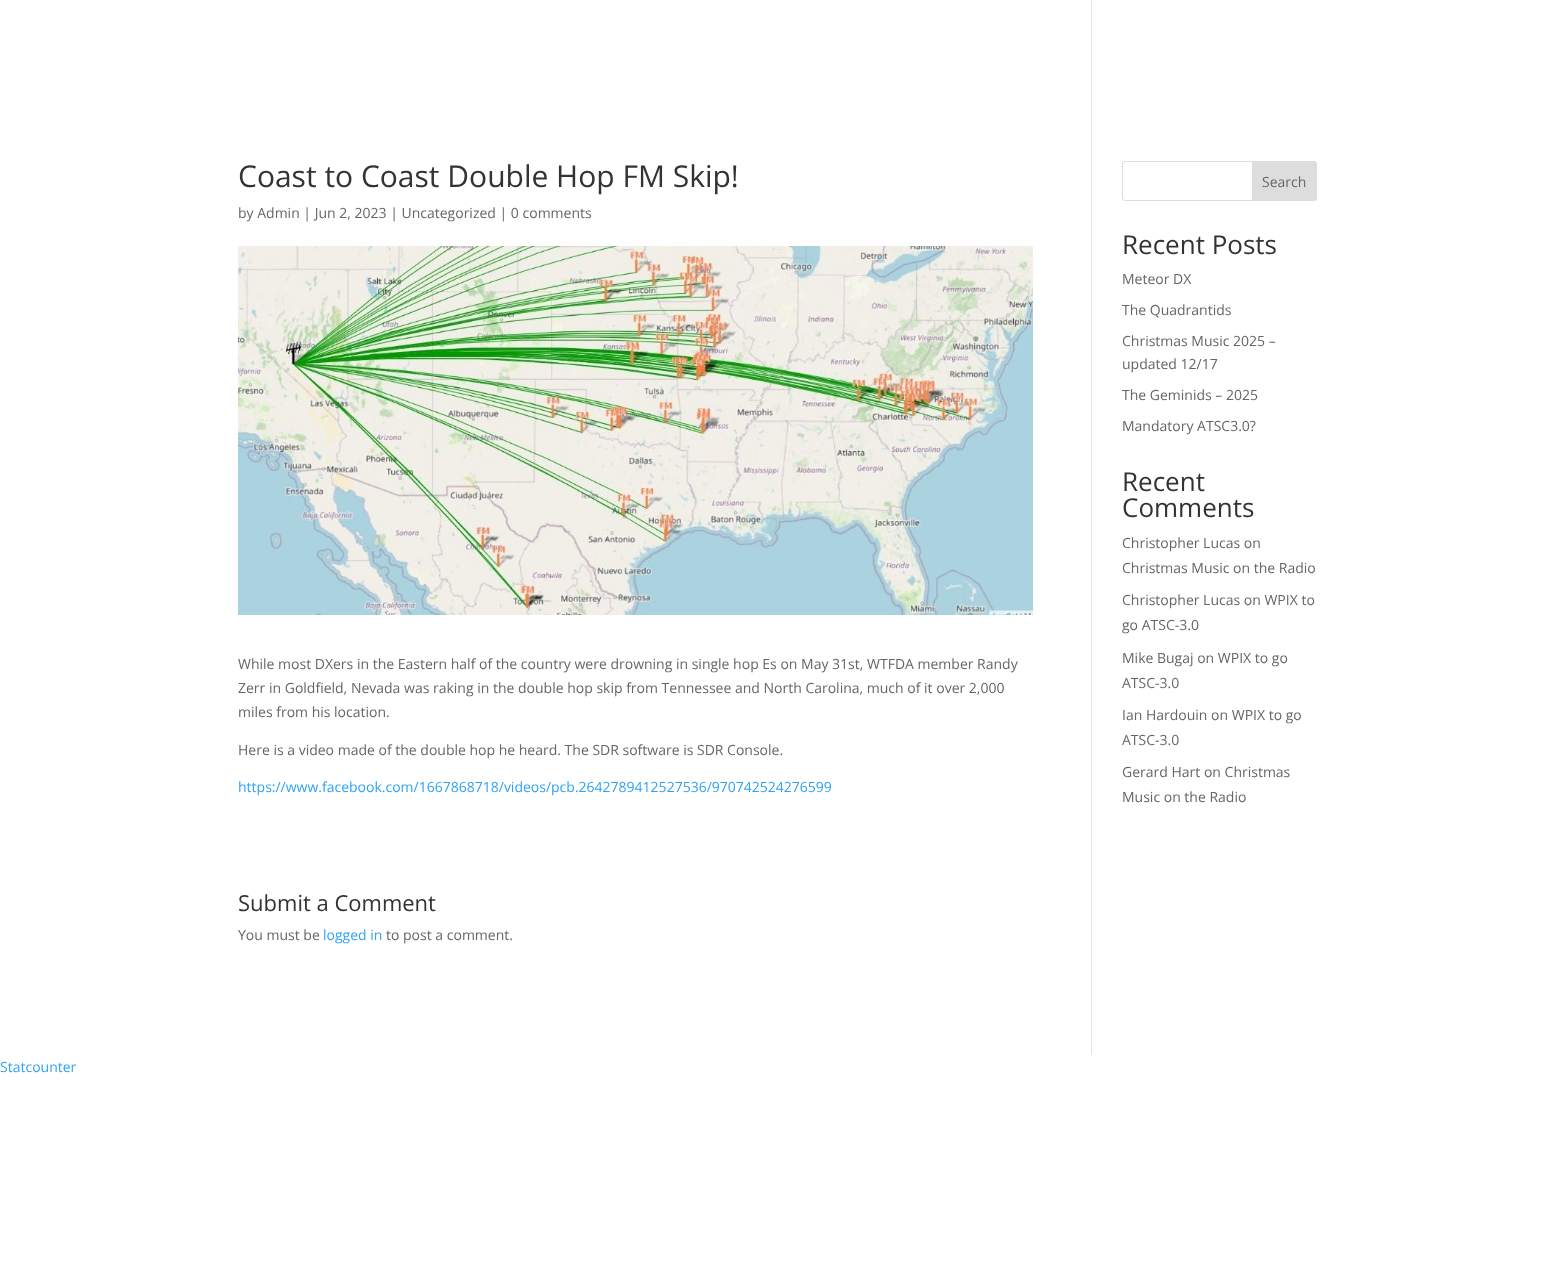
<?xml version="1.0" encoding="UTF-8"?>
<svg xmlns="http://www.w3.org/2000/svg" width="1555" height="1270">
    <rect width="100%" height="100%" fill="#FFFFFF"/>
    <rect x="1091" y="0" width="1" height="1055" fill="#E2E2E2"/>
    <text x="238" y="187" font-family="Open Sans" font-size="30" fill="#333333">Coast to Coast Double Hop FM Skip!</text>
    <text x="238" y="218" font-family="Open Sans" font-size="14" fill="#666666">by Admin | Jun 2, 2023 | Uncategorized | 0 comments</text>
    <image x="238" y="246" width="795" height="369" href="img_01.png"/>
    <text font-family="Open Sans" font-size="14" fill="#666666">
        <tspan x="238" y="669">While most DXers in the Eastern half of the country were drowning in single hop Es on May 31st, WTFDA member Randy</tspan>
        <tspan x="238" y="693">Zerr in Goldfield, Nevada was raking in the double hop skip from Tennessee and North Carolina, much of it over 2,000</tspan>
        <tspan x="238" y="717">miles from his location.</tspan>
    </text>
    <text x="238" y="755" font-family="Open Sans" font-size="14" fill="#666666">Here is a video made of the double hop he heard. The SDR software is SDR Console.</text>
    <text x="238" y="792" font-family="Open Sans" font-size="14" fill="#2EA3F2">https://www.facebook.com/1667868718/videos/pcb.2642789412527536/970742524276599</text>
    <text x="238" y="911" font-family="Open Sans" font-size="22" fill="#333333">Submit a Comment</text>
    <text x="238" y="940" font-family="Open Sans" font-size="14" fill="#666666">You must be</text>
    <text x="323" y="940" font-family="Open Sans" font-size="14" fill="#2EA3F2">logged in</text>
    <text x="386" y="940" font-family="Open Sans" font-size="14" fill="#666666">to post a comment.</text>
    <rect x="1122.5" y="161.5" width="194" height="39" rx="2.5" fill="none" stroke="#DDDDDD"/>
    <path d="M 1252.5 161.5 H 1314 C 1315.5 161.5 1316.5 162.5 1316.5 164 V 198 C 1316.5 199.5 1315.5 200.5 1314 200.5 H 1252.5 Z" fill="#DDDDDD" stroke="#DDDDDD"/>
    <text x="1262" y="187" font-family="Open Sans" font-size="14" fill="#666666">Search</text>
    <text x="1122" y="254" font-family="Open Sans" font-size="26" fill="#333333">Recent Posts</text>
    <text x="1122" y="284" font-family="Open Sans" font-size="14" fill="#666666">Meteor DX</text>
    <text x="1122" y="315" font-family="Open Sans" font-size="14" fill="#666666">The Quadrantids</text>
    <text font-family="Open Sans" font-size="14" fill="#666666">
        <tspan x="1122" y="346">Christmas Music 2025 –</tspan>
        <tspan x="1122" y="369">updated 12/17</tspan>
    </text>
    <text x="1122" y="400" font-family="Open Sans" font-size="14" fill="#666666">The Geminids – 2025</text>
    <text x="1122" y="431" font-family="Open Sans" font-size="14" fill="#666666">Mandatory ATSC3.0?</text>
    <text font-family="Open Sans" font-size="26" fill="#333333">
        <tspan x="1122" y="491">Recent</tspan>
        <tspan x="1122" y="517">Comments</tspan>
    </text>
    <text font-family="Open Sans" font-size="14" fill="#666666">
        <tspan x="1122" y="548">Christopher Lucas on</tspan>
        <tspan x="1122" y="573">Christmas Music on the Radio</tspan>
    </text>
    <text font-family="Open Sans" font-size="14" fill="#666666">
        <tspan x="1122" y="605">Christopher Lucas on WPIX to</tspan>
        <tspan x="1122" y="630">go ATSC-3.0</tspan>
    </text>
    <text font-family="Open Sans" font-size="14" fill="#666666">
        <tspan x="1122" y="663">Mike Bugaj on WPIX to go</tspan>
        <tspan x="1122" y="688">ATSC-3.0</tspan>
    </text>
    <text font-family="Open Sans" font-size="14" fill="#666666">
        <tspan x="1122" y="720">Ian Hardouin on WPIX to go</tspan>
        <tspan x="1122" y="745">ATSC-3.0</tspan>
    </text>
    <text font-family="Open Sans" font-size="14" fill="#666666">
        <tspan x="1122" y="777">Gerard Hart on Christmas</tspan>
        <tspan x="1122" y="802">Music on the Radio</tspan>
    </text>
    <text x="0" y="1072" font-family="Open Sans" font-size="14" fill="#2EA3F2">Statcounter</text>
</svg>
